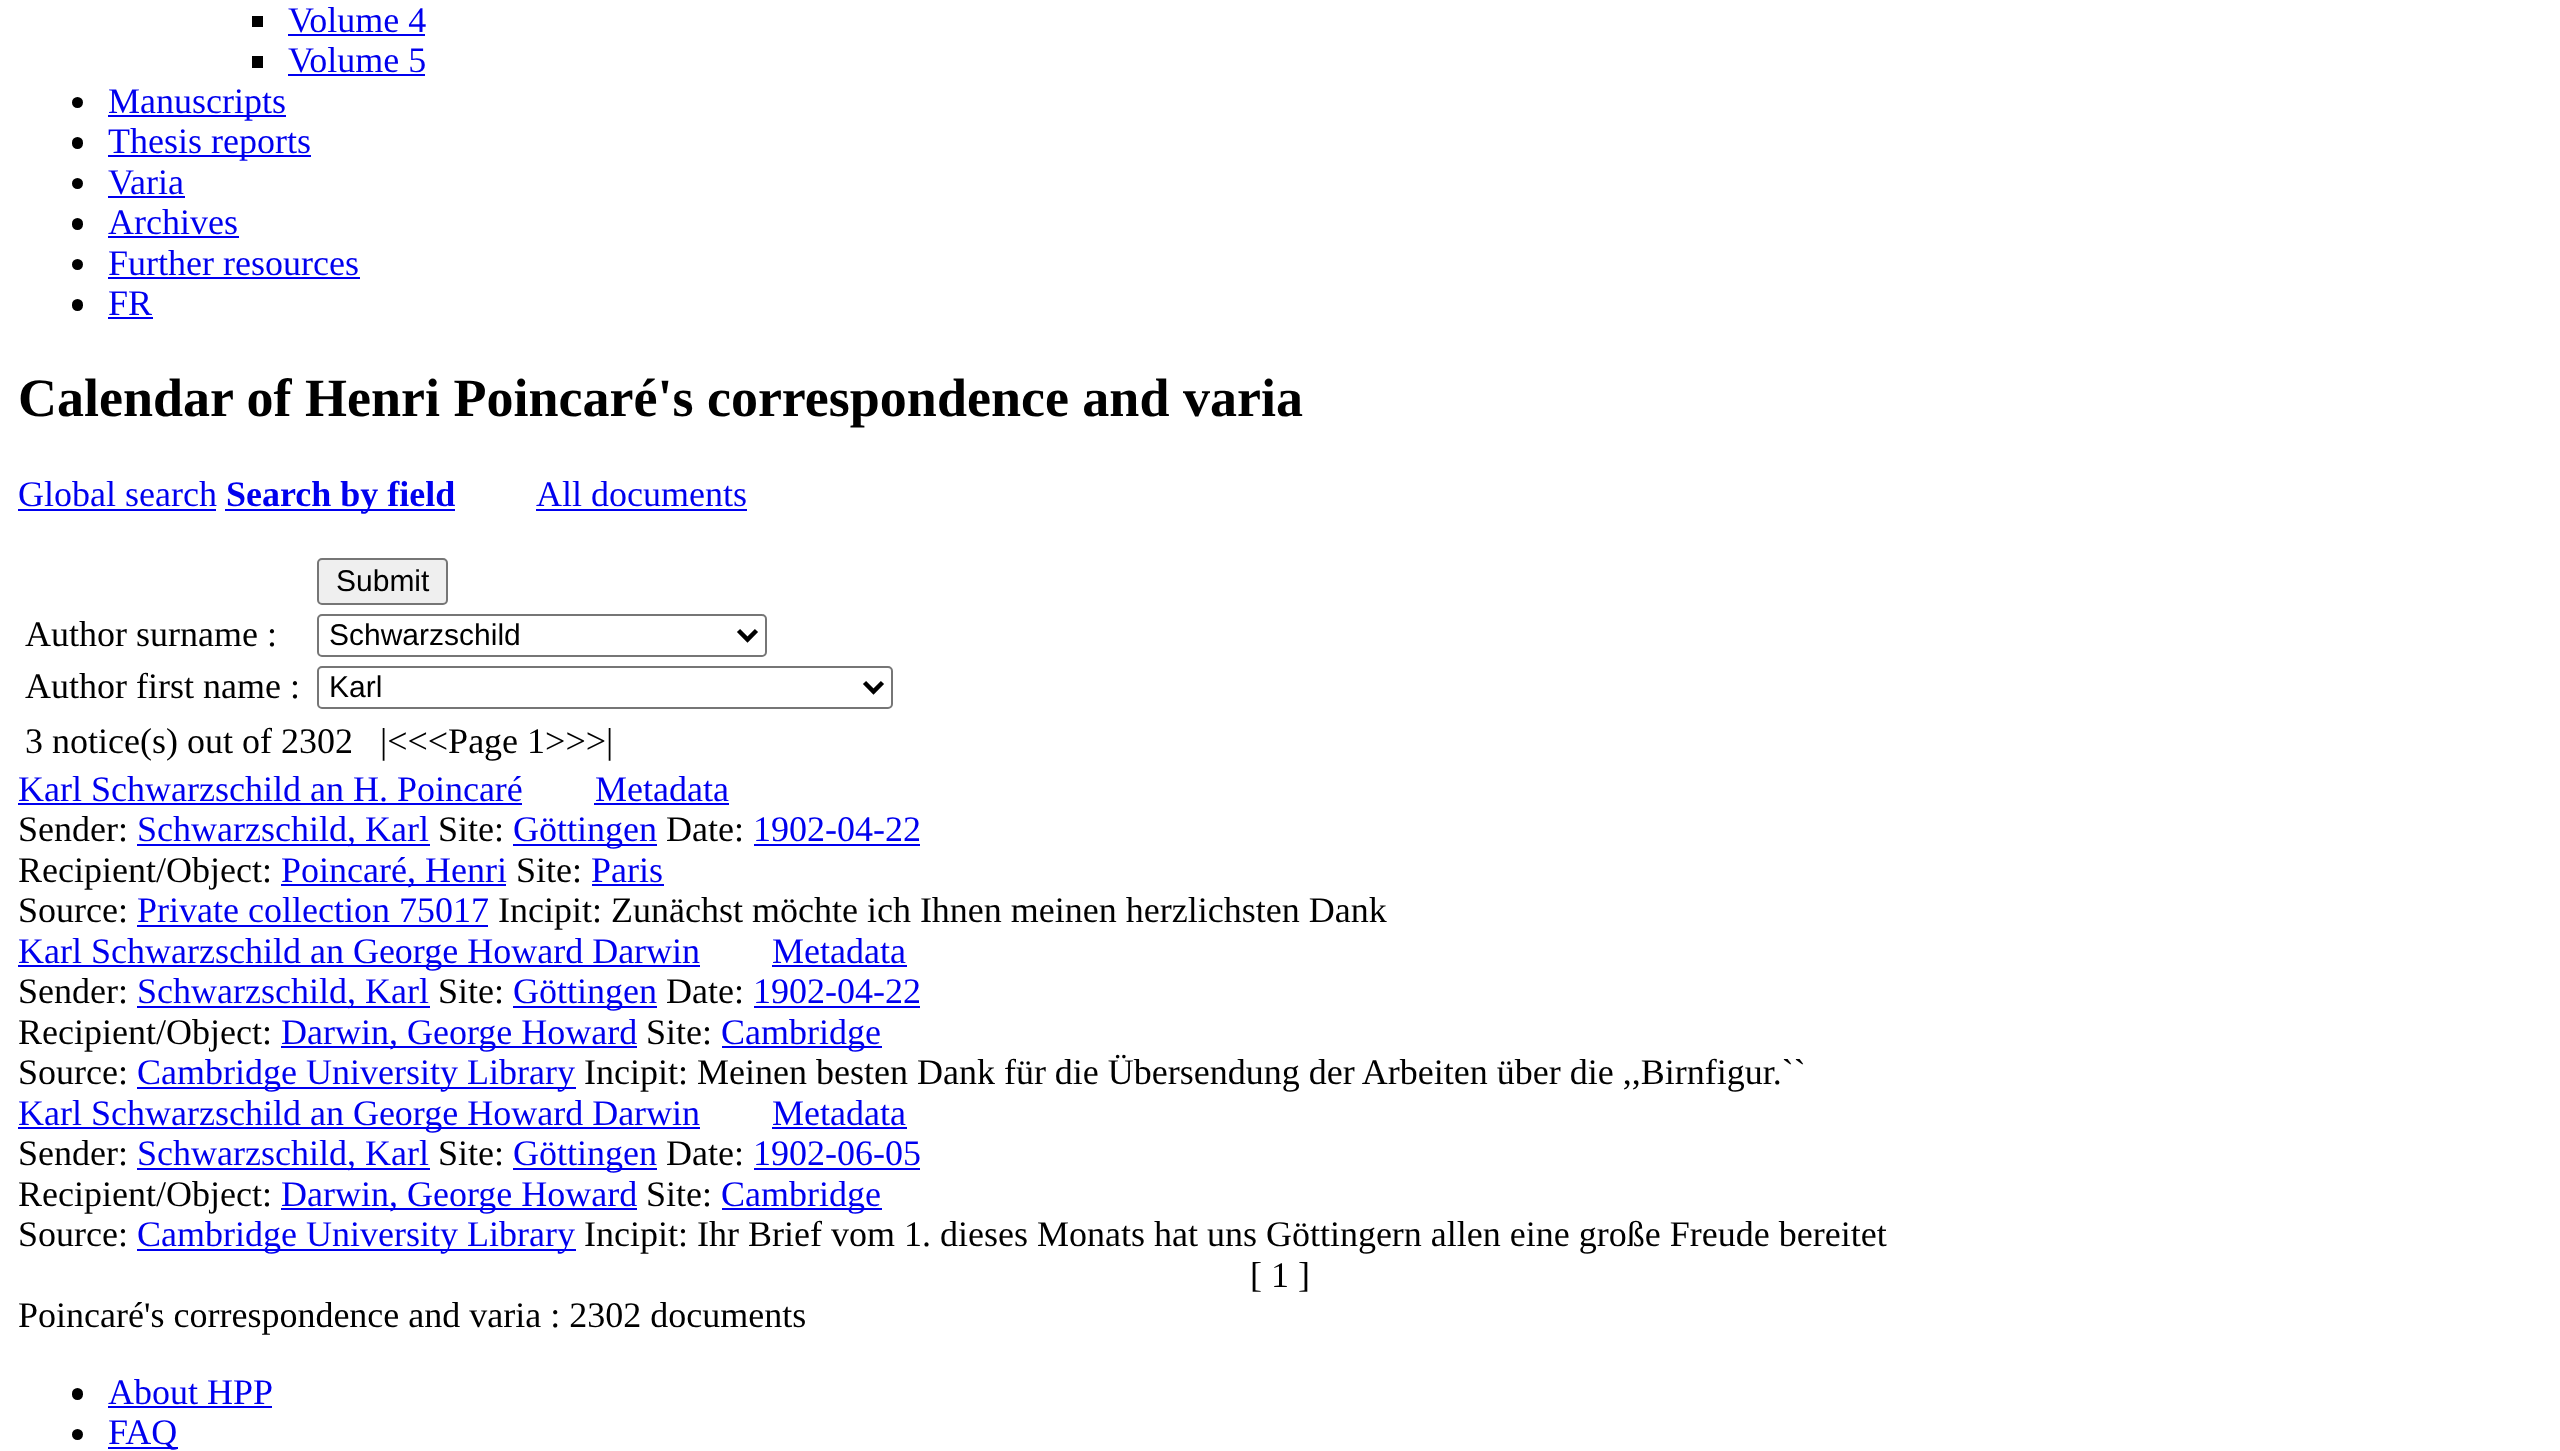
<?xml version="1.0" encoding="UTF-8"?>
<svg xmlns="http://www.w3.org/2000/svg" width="2560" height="1451">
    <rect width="100%" height="100%" fill="#FFFFFF"/>
    <rect x="252" y="16" width="11" height="11" fill="#000000"/>
    <text x="288" y="32" font-family="Liberation Serif" font-size="36" fill="#0000EE">Volume 4</text>
    <rect x="288" y="34" width="137" height="2" fill="#0000EE"/>
    <rect x="252" y="56" width="11" height="12" fill="#000000"/>
    <text x="288" y="72" font-family="Liberation Serif" font-size="36" fill="#0000EE">Volume 5</text>
    <rect x="288" y="74" width="137" height="2" fill="#0000EE"/>
    <circle cx="77.5" cy="102.5" r="5.5" fill="#000000"/>
    <rect x="108" y="115" width="178" height="2" fill="#0000EE"/>
    <text x="108" y="113" font-family="Liberation Serif" font-size="36" fill="#0000EE">Manuscripts</text>
    <rect x="72" y="137" width="11" height="12" rx="5.5" fill="#000000"/>
    <rect x="108" y="155" width="203" height="2" fill="#0000EE"/>
    <text x="108" y="153" font-family="Liberation Serif" font-size="36" fill="#0000EE">Thesis reports</text>
    <circle cx="77.5" cy="183.5" r="5.5" fill="#000000"/>
    <text x="108" y="194" font-family="Liberation Serif" font-size="36" fill="#0000EE">Varia</text>
    <rect x="108" y="196" width="77" height="2" fill="#0000EE"/>
    <rect x="72" y="218" width="11" height="12" rx="5.5" fill="#000000"/>
    <text x="108" y="234" font-family="Liberation Serif" font-size="36" fill="#0000EE">Archives</text>
    <rect x="108" y="236" width="131" height="2" fill="#0000EE"/>
    <circle cx="77.5" cy="264.5" r="5.5" fill="#000000"/>
    <text x="108" y="275" font-family="Liberation Serif" font-size="36" fill="#0000EE">Further resources</text>
    <rect x="108" y="277" width="252" height="2" fill="#0000EE"/>
    <rect x="72" y="299" width="11" height="12" rx="5.5" fill="#000000"/>
    <text x="108" y="315" font-family="Liberation Serif" font-size="36" fill="#0000EE">FR</text>
    <rect x="108" y="317" width="45" height="2" fill="#0000EE"/>
    <text x="18" y="416" font-family="Liberation Serif" font-size="54" font-weight="700" fill="#000000">Calendar of Henri Poincaré's correspondence and varia</text>
    <text x="18" y="506" font-family="Liberation Serif" font-size="36" fill="#0000EE">Global search</text>
    <rect x="18" y="509" width="198" height="2" fill="#0000EE"/>
    <rect x="225" y="509" width="230" height="2" fill="#0000EE"/>
    <text x="226" y="506" font-family="Liberation Serif" font-size="36" font-weight="700" fill="#0000EE">Search by field</text>
    <text x="536" y="506" font-family="Liberation Serif" font-size="36" fill="#0000EE">All documents</text>
    <rect x="536" y="509" width="211" height="2" fill="#0000EE"/>
    <rect x="318" y="559" width="129" height="45" rx="4" fill="#EFEFEF" stroke="#767676" stroke-width="2"/>
    <text x="336" y="591" font-family="Liberation Sans" font-size="30" fill="#000000">Submit</text>
    <text x="25" y="646" font-family="Liberation Serif" font-size="36" fill="#000000">Author surname :</text>
    <rect x="318" y="615" width="448" height="41" rx="4" fill="none" stroke="#767676" stroke-width="2"/>
    <path d="M 738.5 630.5 L 747.5 639.5 L 756.5 630.5" fill="none" stroke="#000000" stroke-width="4.5"/>
    <text x="329" y="645" font-family="Liberation Sans" font-size="30" fill="#000000">Schwarzschild</text>
    <text x="25" y="698" font-family="Liberation Serif" font-size="36" fill="#000000">Author first name :</text>
    <rect x="318" y="667" width="574" height="41" rx="4" fill="none" stroke="#767676" stroke-width="2"/>
    <path d="M 864.5 682.5 L 873.5 691.5 L 882.5 682.5" fill="none" stroke="#000000" stroke-width="4.5"/>
    <text x="329" y="697" font-family="Liberation Sans" font-size="30" fill="#000000">Karl</text>
    <text x="25" y="753" font-family="Liberation Serif" font-size="36" fill="#000000">3 notice(s) out of 2302</text>
    <text x="380" y="753" font-family="Liberation Serif" font-size="36" fill="#000000">|&lt;&lt;&lt;Page 1&gt;&gt;&gt;|</text>
    <text x="18" y="801" font-family="Liberation Serif" font-size="36" fill="#0000EE">Karl Schwarzschild an H. Poincaré</text>
    <rect x="18" y="803" width="504" height="2" fill="#0000EE"/>
    <text x="595" y="801" font-family="Liberation Serif" font-size="36" fill="#0000EE">Metadata</text>
    <rect x="594" y="803" width="135" height="2" fill="#0000EE"/>
    <text x="18" y="841" font-family="Liberation Serif" font-size="36" fill="#000000">Sender:</text>
    <rect x="137" y="844" width="293" height="2" fill="#0000EE"/>
    <text x="137" y="841" font-family="Liberation Serif" font-size="36" fill="#0000EE">Schwarzschild, Karl</text>
    <text x="438" y="841" font-family="Liberation Serif" font-size="36" fill="#000000">Site:</text>
    <rect x="513" y="844" width="144" height="2" fill="#0000EE"/>
    <text x="513" y="841" font-family="Liberation Serif" font-size="36" fill="#0000EE">Göttingen</text>
    <text x="666" y="841" font-family="Liberation Serif" font-size="36" fill="#000000">Date:</text>
    <text x="753" y="841" font-family="Liberation Serif" font-size="36" fill="#0000EE">1902-04-22</text>
    <rect x="754" y="844" width="166" height="2" fill="#0000EE"/>
    <text x="18" y="882" font-family="Liberation Serif" font-size="36" fill="#000000">Recipient/Object:</text>
    <rect x="281" y="884" width="225" height="2" fill="#0000EE"/>
    <text x="281" y="882" font-family="Liberation Serif" font-size="36" fill="#0000EE">Poincaré, Henri</text>
    <text x="516" y="882" font-family="Liberation Serif" font-size="36" fill="#000000">Site:</text>
    <text x="591" y="882" font-family="Liberation Serif" font-size="36" fill="#0000EE">Paris</text>
    <rect x="592" y="884" width="72" height="2" fill="#0000EE"/>
    <text x="18" y="922" font-family="Liberation Serif" font-size="36" fill="#000000">Source:</text>
    <text x="137" y="922" font-family="Liberation Serif" font-size="36" fill="#0000EE">Private collection 75017</text>
    <rect x="137" y="925" width="351" height="2" fill="#0000EE"/>
    <text x="498" y="922" font-family="Liberation Serif" font-size="36" fill="#000000">Incipit: Zunächst möchte ich Ihnen meinen herzlichsten Dank</text>
    <rect x="18" y="965" width="682" height="2" fill="#0000EE"/>
    <text x="18" y="963" font-family="Liberation Serif" font-size="36" fill="#0000EE">Karl Schwarzschild an George Howard Darwin</text>
    <text x="772" y="963" font-family="Liberation Serif" font-size="36" fill="#0000EE">Metadata</text>
    <rect x="772" y="965" width="135" height="2" fill="#0000EE"/>
    <text x="18" y="1003" font-family="Liberation Serif" font-size="36" fill="#000000">Sender:</text>
    <rect x="137" y="1006" width="293" height="2" fill="#0000EE"/>
    <text x="137" y="1003" font-family="Liberation Serif" font-size="36" fill="#0000EE">Schwarzschild, Karl</text>
    <text x="438" y="1003" font-family="Liberation Serif" font-size="36" fill="#000000">Site:</text>
    <rect x="513" y="1006" width="144" height="2" fill="#0000EE"/>
    <text x="513" y="1003" font-family="Liberation Serif" font-size="36" fill="#0000EE">Göttingen</text>
    <text x="666" y="1003" font-family="Liberation Serif" font-size="36" fill="#000000">Date:</text>
    <text x="753" y="1003" font-family="Liberation Serif" font-size="36" fill="#0000EE">1902-04-22</text>
    <rect x="754" y="1006" width="166" height="2" fill="#0000EE"/>
    <text x="18" y="1044" font-family="Liberation Serif" font-size="36" fill="#000000">Recipient/Object:</text>
    <rect x="281" y="1046" width="356" height="2" fill="#0000EE"/>
    <text x="281" y="1044" font-family="Liberation Serif" font-size="36" fill="#0000EE">Darwin, George Howard</text>
    <text x="646" y="1044" font-family="Liberation Serif" font-size="36" fill="#000000">Site:</text>
    <rect x="722" y="1046" width="160" height="2" fill="#0000EE"/>
    <text x="721" y="1044" font-family="Liberation Serif" font-size="36" fill="#0000EE">Cambridge</text>
    <text x="18" y="1084" font-family="Liberation Serif" font-size="36" fill="#000000">Source:</text>
    <rect x="137" y="1087" width="439" height="2" fill="#0000EE"/>
    <text x="137" y="1084" font-family="Liberation Serif" font-size="36" fill="#0000EE">Cambridge University Library</text>
    <text x="584" y="1084" font-family="Liberation Serif" font-size="36" fill="#000000">Incipit: Meinen besten Dank für die Übersendung der Arbeiten über die ,,Birnfigur.``</text>
    <rect x="18" y="1127" width="682" height="2" fill="#0000EE"/>
    <text x="18" y="1125" font-family="Liberation Serif" font-size="36" fill="#0000EE">Karl Schwarzschild an George Howard Darwin</text>
    <text x="772" y="1125" font-family="Liberation Serif" font-size="36" fill="#0000EE">Metadata</text>
    <rect x="772" y="1127" width="135" height="2" fill="#0000EE"/>
    <text x="18" y="1165" font-family="Liberation Serif" font-size="36" fill="#000000">Sender:</text>
    <rect x="137" y="1168" width="293" height="2" fill="#0000EE"/>
    <text x="137" y="1165" font-family="Liberation Serif" font-size="36" fill="#0000EE">Schwarzschild, Karl</text>
    <text x="438" y="1165" font-family="Liberation Serif" font-size="36" fill="#000000">Site:</text>
    <rect x="513" y="1168" width="144" height="2" fill="#0000EE"/>
    <text x="513" y="1165" font-family="Liberation Serif" font-size="36" fill="#0000EE">Göttingen</text>
    <text x="666" y="1165" font-family="Liberation Serif" font-size="36" fill="#000000">Date:</text>
    <text x="753" y="1165" font-family="Liberation Serif" font-size="36" fill="#0000EE">1902-06-05</text>
    <rect x="754" y="1168" width="166" height="2" fill="#0000EE"/>
    <text x="18" y="1206" font-family="Liberation Serif" font-size="36" fill="#000000">Recipient/Object:</text>
    <rect x="281" y="1208" width="356" height="2" fill="#0000EE"/>
    <text x="281" y="1206" font-family="Liberation Serif" font-size="36" fill="#0000EE">Darwin, George Howard</text>
    <text x="646" y="1206" font-family="Liberation Serif" font-size="36" fill="#000000">Site:</text>
    <rect x="722" y="1208" width="160" height="2" fill="#0000EE"/>
    <text x="721" y="1206" font-family="Liberation Serif" font-size="36" fill="#0000EE">Cambridge</text>
    <text x="18" y="1246" font-family="Liberation Serif" font-size="36" fill="#000000">Source:</text>
    <rect x="137" y="1249" width="439" height="2" fill="#0000EE"/>
    <text x="137" y="1246" font-family="Liberation Serif" font-size="36" fill="#0000EE">Cambridge University Library</text>
    <text x="584" y="1246" font-family="Liberation Serif" font-size="36" fill="#000000">Incipit: Ihr Brief vom 1. dieses Monats hat uns Göttingern allen eine große Freude bereitet</text>
    <text x="1250" y="1287" font-family="Liberation Serif" font-size="36" fill="#000000">[ 1 ]</text>
    <text x="18" y="1327" font-family="Liberation Serif" font-size="36" fill="#000000">Poincaré's correspondence and varia : 2302 documents</text>
    <rect x="72" y="1388" width="11" height="12" rx="5.5" fill="#000000"/>
    <text x="108" y="1404" font-family="Liberation Serif" font-size="36" fill="#0000EE">About HPP</text>
    <rect x="108" y="1406" width="164" height="2" fill="#0000EE"/>
    <circle cx="77.5" cy="1434.5" r="5.5" fill="#000000"/>
    <rect x="108" y="1447" width="70" height="2" fill="#0000EE"/>
    <text x="108" y="1444" font-family="Liberation Serif" font-size="36" fill="#0000EE">FAQ</text>
</svg>
